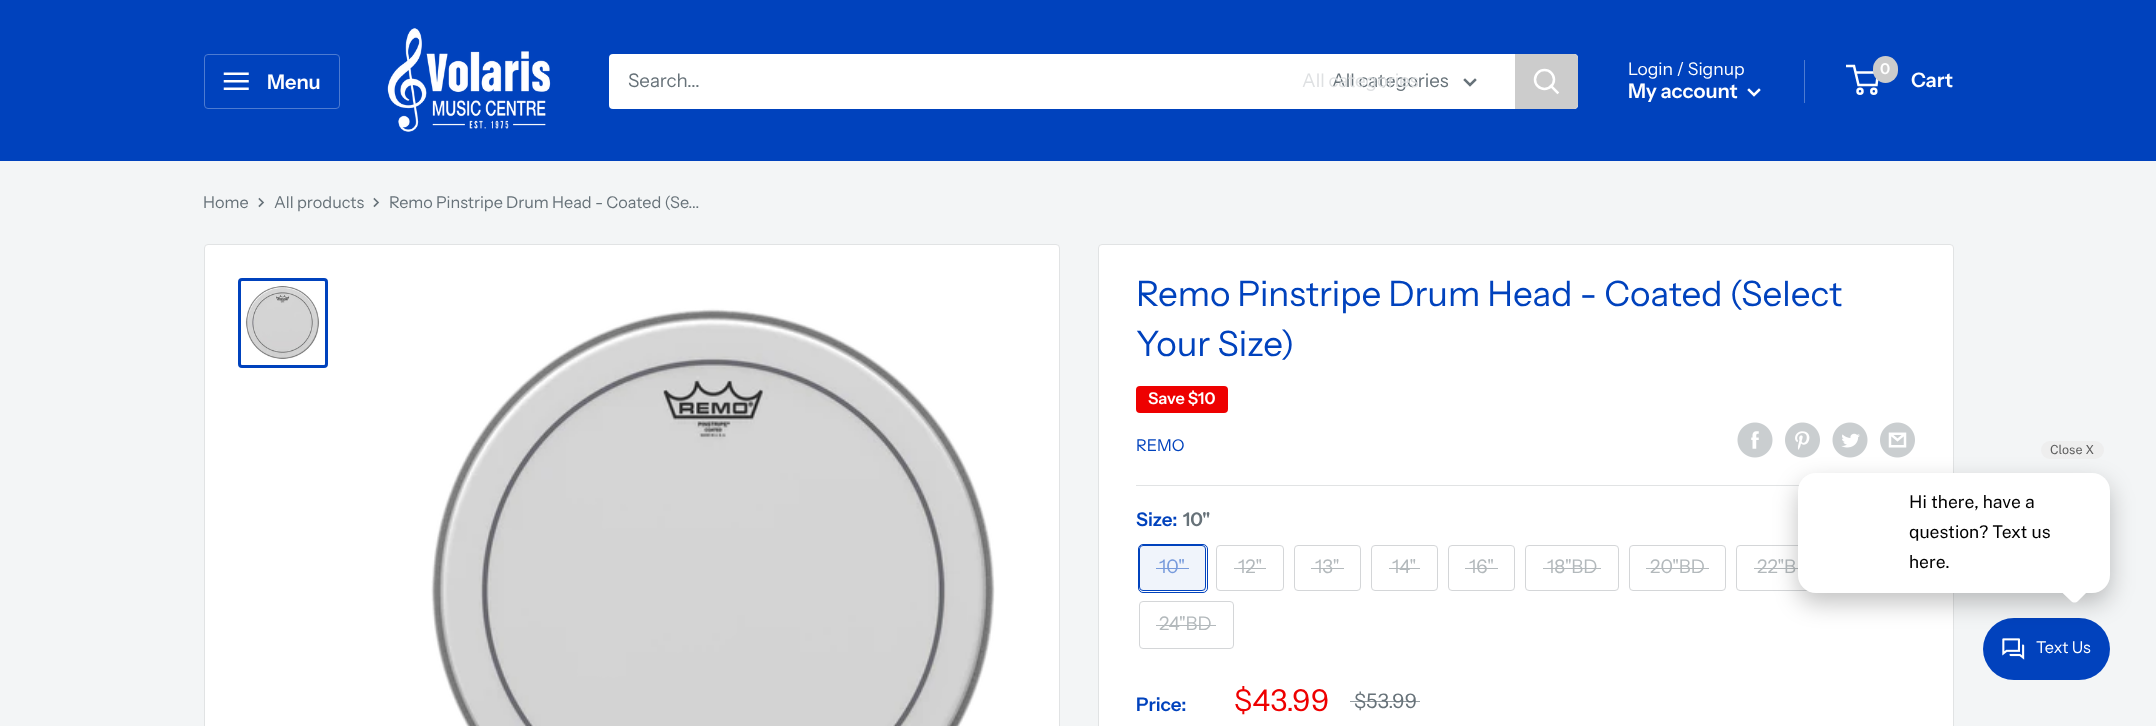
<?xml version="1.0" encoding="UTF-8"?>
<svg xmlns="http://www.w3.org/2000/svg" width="2156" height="726">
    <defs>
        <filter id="blur1" x="-50%" y="-200%" width="200%" height="500%"><feGaussianBlur stdDeviation="12.5"/></filter>
    </defs>
    <rect width="100%" height="100%" fill="#F3F5F6"/>
    <rect x="0" y="0" width="2156" height="161" fill="#0042BD"/>
    <rect x="204.5" y="54.5" width="135" height="54" rx="3.5" fill="none" stroke="#4D7BD1"/>
    <image x="223" y="72" width="26" height="18" href="img_01.png"/>
    <text x="267" y="89" font-family="Instrument Sans" font-size="20" font-weight="600" fill="#FFFFFF">Menu</text>
    <image x="387" y="28" width="164" height="104" href="img_02.png"/>
    <rect x="609" y="54" width="969" height="55" rx="4" fill="#FFFFFF"/>
    <text x="628" y="87" font-family="Instrument Sans" font-size="18.75" fill="#677279">Search...</text>
    <text x="1332" y="87" font-family="Instrument Sans" font-size="18.75" fill="#677279">All categories</text>
    <text x="1302" y="87" font-family="Instrument Sans" font-size="18.75" fill="#DEE0E2">All categories</text>
    <path d="M 1475 80 L 1470 85 L 1465 80" fill="none" stroke="#677279" stroke-width="2.5" stroke-linecap="square"/>
    <path d="M 1515 54 H 1574 C 1576 54 1578 56 1578 58 V 105 C 1578 107 1576 109 1574 109 H 1515 Z" fill="#CCCCCC"/>
    <path d="M 1557.5 92.5 L 1551 86" fill="none" stroke="#FFFFFF" stroke-width="2.5" stroke-linecap="square"/>
    <circle cx="1544.5" cy="79.5" r="9.5" fill="none" stroke="#FFFFFF" stroke-width="2.5"/>
    <text x="1628" y="75" font-family="Instrument Sans" font-size="17.5" fill="#FFFFFF">Login / Signup</text>
    <rect x="1804" y="60" width="1" height="43" fill="#4D7BD1"/>
    <text x="1628" y="98" font-family="Instrument Sans" font-size="20" font-weight="600" fill="#FFFFFF">My account</text>
    <path d="M 1759 90 L 1754 95 L 1749 90" fill="none" stroke="#FFFFFF" stroke-width="2.5" stroke-linecap="square"/>
    <circle cx="1860" cy="91.2" r="2.5" fill="none" stroke="#FFFFFF" stroke-width="2.5"/>
    <circle cx="1873.8" cy="91.2" r="2.5" fill="none" stroke="#FFFFFF" stroke-width="2.5"/>
    <path d="M 1855.5 72.5 H 1878 L 1876.5 85 H 1858.5 L 1854 66 H 1846" fill="none" stroke="#FFFFFF" stroke-width="2.5"/>
    <rect x="1873" y="56" width="25" height="27" rx="12.5" fill="#CCCCCC"/>
    <text x="1880" y="74" font-family="Instrument Sans" font-size="15" font-weight="600" fill="#FFFFFF">0</text>
    <text x="1911" y="87" font-family="Instrument Sans" font-size="20" font-weight="600" fill="#FFFFFF">Cart</text>
    <text x="203" y="208" font-family="Instrument Sans" font-size="16.25" fill="#677279">Home</text>
    <path d="M 259.5 199 L 263 202.5 L 259.5 206" fill="none" stroke="#677279" stroke-width="1.7" stroke-linecap="square"/>
    <text x="274" y="208" font-family="Instrument Sans" font-size="16.25" fill="#677279">All products</text>
    <path d="M 374.5 199 L 378 202.5 L 374.5 206" fill="none" stroke="#677279" stroke-width="1.7" stroke-linecap="square"/>
    <text x="389" y="208" font-family="Instrument Sans" font-size="16.25" fill="#677279">Remo Pinstripe Drum Head - Coated (Se...</text>
    <rect x="204.5" y="244.5" width="855" height="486" rx="3.5" fill="#FFFFFF" stroke="#E1E3E4"/>
    <rect x="239.5" y="279.5" width="87" height="87" rx="2.5" fill="none" stroke="#0042BD" stroke-width="3"/>
    <image x="245" y="286" width="75" height="73" href="img_03.png"/>
    <image x="431" y="308" width="564" height="418" href="img_04.png"/>
    <rect x="1098.5" y="244.5" width="855" height="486" rx="3.5" fill="#FFFFFF" stroke="#E1E3E4"/>
    <text font-family="Instrument Sans" font-size="35" fill="#0042BD">
        <tspan x="1136" y="306">Remo Pinstripe Drum Head - Coated (Select</tspan>
        <tspan x="1136" y="356">Your Size)</tspan>
    </text>
    <rect x="1136" y="386" width="92" height="27" rx="4" fill="#EE0000"/>
    <text x="1148" y="404" font-family="Instrument Sans" font-size="16.25" font-weight="600" fill="#FFFFFF">Save $10</text>
    <text x="1136" y="451" font-family="Instrument Sans" font-size="16.25" fill="#0042BD">REMO</text>
    <image x="1737" y="422" width="36" height="36" href="img_05.png"/>
    <image x="1785" y="422" width="35" height="36" href="img_06.png"/>
    <image x="1832" y="422" width="36" height="36" href="img_07.png"/>
    <image x="1880" y="422" width="35" height="36" href="img_08.png"/>
    <rect x="1136" y="485" width="663" height="1" fill="#E1E3E4"/>
    <text x="1136" y="526" font-family="Instrument Sans" font-size="18.75" font-weight="600" fill="#0042BD">Size:</text>
    <text x="1183" y="526" font-family="Instrument Sans" font-size="18.75" font-weight="600" fill="#677279">10"</text>
    <rect x="1138.5" y="544.5" width="69" height="48" rx="4.5" fill="none" stroke="#0042BD"/>
    <rect x="1139" y="545" width="67" height="46" fill="#0042BD" fill-opacity="0.06"/>
    <rect x="1139.5" y="545.5" width="66" height="45" rx="3.5" fill="none" stroke="#0042BD"/>
    <text x="1159" y="573" font-family="Instrument Sans" font-size="18.75" fill="#789BDC">10"</text>
    <rect x="1156" y="568" width="33" height="1" fill="#789BDC"/>
    <rect x="1216.5" y="545.5" width="67" height="45" rx="3.5" fill="none" stroke="#D4D6D8"/>
    <text x="1238" y="573" font-family="Instrument Sans" font-size="18.75" fill="#B3B9BC">12"</text>
    <rect x="1234" y="568" width="32" height="1" fill="#B3B9BC"/>
    <rect x="1294.5" y="545.5" width="66" height="45" rx="3.5" fill="none" stroke="#D4D6D8"/>
    <text x="1315" y="573" font-family="Instrument Sans" font-size="18.75" fill="#B3B9BC">13"</text>
    <rect x="1311" y="568" width="33" height="1" fill="#B3B9BC"/>
    <rect x="1371.5" y="545.5" width="66" height="45" rx="3.5" fill="none" stroke="#D4D6D8"/>
    <text x="1392" y="573" font-family="Instrument Sans" font-size="18.75" fill="#B3B9BC">14"</text>
    <rect x="1389" y="568" width="31" height="1" fill="#B3B9BC"/>
    <rect x="1448.5" y="545.5" width="66" height="45" rx="3.5" fill="none" stroke="#D4D6D8"/>
    <text x="1469" y="573" font-family="Instrument Sans" font-size="18.75" fill="#B3B9BC">16"</text>
    <rect x="1465" y="568" width="33" height="1" fill="#B3B9BC"/>
    <rect x="1525.5" y="545.5" width="93" height="45" rx="3.5" fill="none" stroke="#D4D6D8"/>
    <text x="1547" y="573" font-family="Instrument Sans" font-size="18.75" fill="#B3B9BC">18"BD</text>
    <rect x="1543" y="568" width="58" height="1" fill="#B3B9BC"/>
    <rect x="1629.5" y="545.5" width="96" height="45" rx="3.5" fill="none" stroke="#D4D6D8"/>
    <text x="1650" y="573" font-family="Instrument Sans" font-size="18.75" fill="#B3B9BC">20"BD</text>
    <rect x="1646" y="568" width="63" height="1" fill="#B3B9BC"/>
    <rect x="1736.5" y="545.5" width="94" height="45" rx="3.5" fill="none" stroke="#D4D6D8"/>
    <text x="1757" y="573" font-family="Instrument Sans" font-size="18.75" fill="#B3B9BC">22"B</text>
    <rect x="1754" y="568" width="44" height="1" fill="#B3B9BC"/>
    <rect x="1139.5" y="601.5" width="94" height="47" rx="3.5" fill="none" stroke="#D4D6D8"/>
    <text x="1159" y="630" font-family="Instrument Sans" font-size="18.75" fill="#B3B9BC">24"BD</text>
    <rect x="1156" y="625" width="60" height="1" fill="#B3B9BC"/>
    <text x="1136" y="711" font-family="Instrument Sans" font-size="18.75" font-weight="600" fill="#0042BD">Price:</text>
    <text x="1234" y="711" font-family="Instrument Sans" font-size="30" fill="#EE0000">$43.99</text>
    <text x="1354" y="708" font-family="Instrument Sans" font-size="20" fill="#677279">$53.99</text>
    <rect x="1350" y="701" width="70" height="1" fill="#677279" fill-opacity="0.7"/>
    <rect x="1983" y="618" width="127" height="62" rx="31" fill="#0142BD"/>
    <image x="2002" y="638" width="23" height="22" href="img_09.png"/>
    <rect x="1798" y="483" width="312" height="120" rx="18" fill="#000000" fill-opacity="0.24" filter="url(#blur1)"/>
    <rect x="1798" y="473" width="312" height="120" rx="18" fill="#FFFFFF"/>
    <rect x="2041" y="441" width="63" height="18" rx="9" fill="#EEEEEE"/>
    <text x="2050" y="454" font-family="Public Sans" font-size="12.5" font-weight="100" fill="#5D5D5D">Close X</text>
    <text font-family="Public Sans" font-size="17.5" font-weight="100" fill="#000000">
        <tspan x="1909" y="508">Hi there, have a</tspan>
        <tspan x="1909" y="538">question? Text us</tspan>
        <tspan x="1909" y="568">here.</tspan>
    </text>
    <path d="M 2078 572.5 L 2088.5 583.5 C 2090.5 585.5 2090.5 588.5 2088.5 590.5 L 2078 601 C 2076 603 2073 603 2071 601 L 2060 590.5 C 2058.5 588.5 2058.5 585.5 2060 583.5 L 2071 572.5 C 2073 571 2076 571 2078 572.5 Z" fill="#FFFFFF"/>
    <text x="2036" y="653" font-family="Instrument Sans" font-size="16.25" fill="#FFFFFF">Text Us</text>
</svg>
